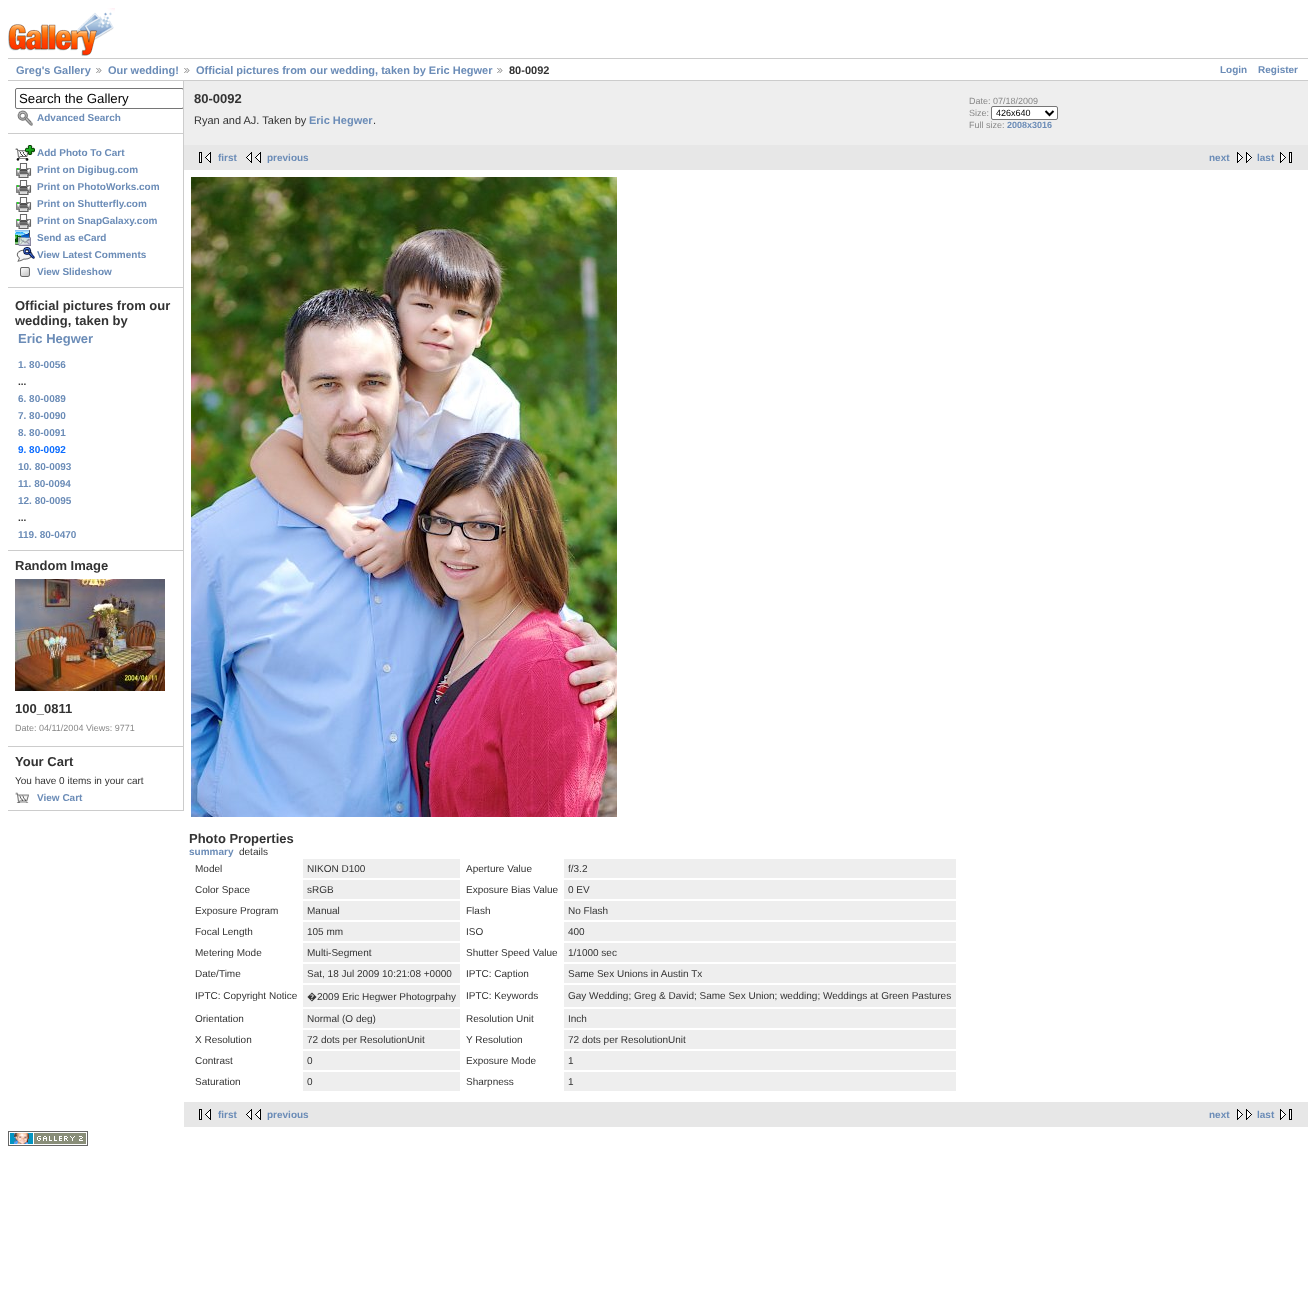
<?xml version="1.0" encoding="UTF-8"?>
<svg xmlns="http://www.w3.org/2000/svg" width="1316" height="1293">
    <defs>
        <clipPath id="clip1"><rect x="8" y="81" width="175" height="730"/></clipPath>
    </defs>
    <rect width="100%" height="100%" fill="#FFFFFF"/>
    <image x="8" y="8" width="107" height="48" href="img_01.png"/>
    <rect x="8" y="58" width="1300" height="1" fill="#CCCCCC"/>
    <rect x="8" y="80" width="1300" height="1" fill="#CCCCCC"/>
    <text x="16" y="74" font-family="Liberation Sans" font-size="11" font-weight="700" fill="#6B8CB7">Greg's Gallery</text>
    <image x="96" y="68" width="6" height="5" href="img_02.png"/>
    <text x="108" y="74" font-family="Liberation Sans" font-size="11" font-weight="700" fill="#6B8CB7">Our wedding!</text>
    <image x="184" y="68" width="6" height="5" href="img_02.png"/>
    <text x="196" y="74" font-family="Liberation Sans" font-size="11" font-weight="700" fill="#6B8CB7">Official pictures from our wedding, taken by Eric Hegwer</text>
    <image x="497" y="68" width="6" height="5" href="img_02.png"/>
    <text x="509" y="74" font-family="Liberation Sans" font-size="11" font-weight="700" fill="#333333">80-0092</text>
    <text x="1220" y="73" font-family="Liberation Sans" font-size="10" font-weight="700" fill="#6B8CB7">Login</text>
    <text x="1258" y="73" font-family="Liberation Sans" font-size="10" font-weight="700" fill="#6B8CB7">Register</text>
    <rect x="183" y="81" width="1" height="730" fill="#CCCCCC"/>
    <rect x="8" y="133" width="175" height="1" fill="#CCCCCC"/>
    <g clip-path="url(#clip1)">
        <rect x="15.5" y="88.5" width="168" height="20" rx="1.5" fill="none" stroke="#767676"/>
    </g>
    <text x="19" y="103" font-family="Liberation Sans" font-size="13.25" fill="#000000">Search the Gallery</text>
    <image x="17" y="110" width="16" height="16" href="img_03.png"/>
    <text x="37" y="121" font-family="Liberation Sans" font-size="10" font-weight="700" fill="#6B8CB7">Advanced Search</text>
    <rect x="8" y="287" width="175" height="1" fill="#CCCCCC"/>
    <image x="15" y="145" width="20" height="16" href="img_04.png"/>
    <text x="37" y="156" font-family="Liberation Sans" font-size="10" font-weight="700" fill="#6B8CB7">Add Photo To Cart</text>
    <image x="16" y="163" width="16" height="15" href="img_05.png"/>
    <text x="37" y="173" font-family="Liberation Sans" font-size="10" font-weight="700" fill="#6B8CB7">Print on Digibug.com</text>
    <image x="16" y="180" width="16" height="15" href="img_05.png"/>
    <text x="37" y="190" font-family="Liberation Sans" font-size="10" font-weight="700" fill="#6B8CB7">Print on PhotoWorks.com</text>
    <image x="16" y="197" width="16" height="15" href="img_05.png"/>
    <text x="37" y="207" font-family="Liberation Sans" font-size="10" font-weight="700" fill="#6B8CB7">Print on Shutterfly.com</text>
    <image x="16" y="214" width="16" height="15" href="img_05.png"/>
    <text x="37" y="224" font-family="Liberation Sans" font-size="10" font-weight="700" fill="#6B8CB7">Print on SnapGalaxy.com</text>
    <image x="15" y="230" width="16" height="16" href="img_06.png"/>
    <text x="37" y="241" font-family="Liberation Sans" font-size="10" font-weight="700" fill="#6B8CB7">Send as eCard</text>
    <image x="16" y="247" width="19" height="15" href="img_07.png"/>
    <text x="37" y="258" font-family="Liberation Sans" font-size="10" font-weight="700" fill="#6B8CB7">View Latest Comments</text>
    <image x="20" y="267" width="10" height="10" href="img_08.png"/>
    <text x="37" y="275" font-family="Liberation Sans" font-size="10" font-weight="700" fill="#6B8CB7">View Slideshow</text>
    <rect x="8" y="550" width="175" height="1" fill="#CCCCCC"/>
    <text font-family="Liberation Sans" font-size="13" font-weight="700" fill="#333333">
        <tspan x="15" y="310">Official pictures from our</tspan>
        <tspan x="15" y="325">wedding, taken by</tspan>
    </text>
    <text x="18" y="343" font-family="Liberation Sans" font-size="13" font-weight="700" fill="#6B8CB7">Eric Hegwer</text>
    <text x="18" y="368" font-family="Liberation Sans" font-size="10" font-weight="700" fill="#6B8CB7">1. 80-0056</text>
    <text x="18" y="385" font-family="Liberation Sans" font-size="10" font-weight="700" fill="#333333">...</text>
    <text font-family="Liberation Sans" font-size="10" font-weight="700" fill="#6B8CB7">
        <tspan x="18" y="402">6. 80-0089</tspan>
        <tspan x="18" y="419">7. 80-0090</tspan>
        <tspan x="18" y="436">8. 80-0091</tspan>
    </text>
    <text x="18" y="453" font-family="Liberation Sans" font-size="10" font-weight="700" fill="#0B6CFF">9. 80-0092</text>
    <text font-family="Liberation Sans" font-size="10" font-weight="700" fill="#6B8CB7">
        <tspan x="18" y="470">10. 80-0093</tspan>
        <tspan x="18" y="487">11. 80-0094</tspan>
        <tspan x="18" y="504">12. 80-0095</tspan>
    </text>
    <text x="18" y="521" font-family="Liberation Sans" font-size="10" font-weight="700" fill="#333333">...</text>
    <text x="18" y="538" font-family="Liberation Sans" font-size="10" font-weight="700" fill="#6B8CB7">119. 80-0470</text>
    <rect x="8" y="746" width="175" height="1" fill="#CCCCCC"/>
    <text x="15" y="570" font-family="Liberation Sans" font-size="13" font-weight="700" fill="#333333">Random Image</text>
    <image x="15" y="579" width="150" height="112" href="img_09.png"/>
    <text x="15" y="713" font-family="Liberation Sans" font-size="13" font-weight="700" fill="#333333">100_0811</text>
    <text x="15" y="731" font-family="Liberation Sans" font-size="9" fill="#888888">Date: 04/11/2004 Views: 9771</text>
    <rect x="8" y="810" width="175" height="1" fill="#CCCCCC"/>
    <text x="15" y="766" font-family="Liberation Sans" font-size="13" font-weight="700" fill="#333333">Your Cart</text>
    <text x="15" y="784" font-family="Liberation Sans" font-size="10" fill="#333333">You have 0 items in your cart</text>
    <image x="15" y="792" width="14" height="11" href="img_10.png"/>
    <text x="37" y="801" font-family="Liberation Sans" font-size="10" font-weight="700" fill="#6B8CB7">View Cart</text>
    <rect x="184" y="81" width="1124" height="64" fill="#EEEEEE"/>
    <text x="194" y="103" font-family="Liberation Sans" font-size="13" font-weight="700" fill="#333333">80-0092</text>
    <text x="194" y="124" font-family="Liberation Sans" font-size="11" fill="#333333">Ryan and AJ. Taken by</text>
    <text x="309" y="124" font-family="Liberation Sans" font-size="11" font-weight="700" fill="#6B8CB7">Eric Hegwer</text>
    <text x="373" y="124" font-family="Liberation Sans" font-size="11" fill="#333333">.</text>
    <text font-family="Liberation Sans" font-size="9" fill="#888888">
        <tspan x="969" y="104">Date: 07/18/2009</tspan>
        <tspan x="969" y="116">Size:</tspan>
    </text>
    <rect x="991.5" y="106.5" width="66" height="13" rx="1.5" fill="#FFFFFF" stroke="#767676"/>
    <path d="M 1045.5 111 L 1049.5 115 L 1053.5 111" fill="none" stroke="#000000" stroke-width="2"/>
    <text x="996" y="116" font-family="Liberation Sans" font-size="9" fill="#000000">426x640</text>
    <text x="969" y="128" font-family="Liberation Sans" font-size="9" fill="#888888">Full size:</text>
    <text x="1007" y="128" font-family="Liberation Sans" font-size="9" font-weight="700" fill="#6B8CB7">2008x3016</text>
    <rect x="184" y="145" width="1124" height="25" fill="#E7E7E7"/>
    <image x="199" y="152" width="12" height="11" href="img_11.png"/>
    <text x="218" y="161" font-family="Liberation Sans" font-size="10" font-weight="700" fill="#6B8CB7">first</text>
    <image x="246" y="152" width="15" height="11" href="img_12.png"/>
    <text x="267" y="161" font-family="Liberation Sans" font-size="10" font-weight="700" fill="#6B8CB7">previous</text>
    <text x="1209" y="161" font-family="Liberation Sans" font-size="10" font-weight="700" fill="#6B8CB7">next</text>
    <image x="1237" y="152" width="15" height="11" href="img_13.png"/>
    <text x="1257" y="161" font-family="Liberation Sans" font-size="10" font-weight="700" fill="#6B8CB7">last</text>
    <image x="1280" y="152" width="12" height="11" href="img_14.png"/>
    <image x="191" y="177" width="426" height="640" href="img_15.png"/>
    <text x="189" y="843" font-family="Liberation Sans" font-size="13" font-weight="700" fill="#333333">Photo Properties</text>
    <text x="189" y="855" font-family="Liberation Sans" font-size="10" font-weight="700" fill="#6B8CB7">summary</text>
    <text x="239" y="855" font-family="Liberation Sans" font-size="10" fill="#333333">details</text>
    <text x="195" y="872" font-family="Liberation Sans" font-size="10" fill="#333333">Model</text>
    <rect x="303" y="859" width="157" height="19" fill="#EEEEEE"/>
    <text x="307" y="872" font-family="Liberation Sans" font-size="10" fill="#333333">NIKON D100</text>
    <text x="466" y="872" font-family="Liberation Sans" font-size="10" fill="#333333">Aperture Value</text>
    <rect x="564" y="859" width="392" height="19" fill="#EEEEEE"/>
    <text x="568" y="872" font-family="Liberation Sans" font-size="10" fill="#333333">f/3.2</text>
    <text x="195" y="893" font-family="Liberation Sans" font-size="10" fill="#333333">Color Space</text>
    <rect x="303" y="880" width="157" height="19" fill="#EEEEEE"/>
    <text x="307" y="893" font-family="Liberation Sans" font-size="10" fill="#333333">sRGB</text>
    <text x="466" y="893" font-family="Liberation Sans" font-size="10" fill="#333333">Exposure Bias Value</text>
    <rect x="564" y="880" width="392" height="19" fill="#EEEEEE"/>
    <text x="568" y="893" font-family="Liberation Sans" font-size="10" fill="#333333">0 EV</text>
    <text x="195" y="914" font-family="Liberation Sans" font-size="10" fill="#333333">Exposure Program</text>
    <rect x="303" y="901" width="157" height="19" fill="#EEEEEE"/>
    <text x="307" y="914" font-family="Liberation Sans" font-size="10" fill="#333333">Manual</text>
    <text x="466" y="914" font-family="Liberation Sans" font-size="10" fill="#333333">Flash</text>
    <rect x="564" y="901" width="392" height="19" fill="#EEEEEE"/>
    <text x="568" y="914" font-family="Liberation Sans" font-size="10" fill="#333333">No Flash</text>
    <text x="195" y="935" font-family="Liberation Sans" font-size="10" fill="#333333">Focal Length</text>
    <rect x="303" y="922" width="157" height="19" fill="#EEEEEE"/>
    <text x="307" y="935" font-family="Liberation Sans" font-size="10" fill="#333333">105 mm</text>
    <text x="466" y="935" font-family="Liberation Sans" font-size="10" fill="#333333">ISO</text>
    <rect x="564" y="922" width="392" height="19" fill="#EEEEEE"/>
    <text x="568" y="935" font-family="Liberation Sans" font-size="10" fill="#333333">400</text>
    <text x="195" y="956" font-family="Liberation Sans" font-size="10" fill="#333333">Metering Mode</text>
    <rect x="303" y="943" width="157" height="19" fill="#EEEEEE"/>
    <text x="307" y="956" font-family="Liberation Sans" font-size="10" fill="#333333">Multi-Segment</text>
    <text x="466" y="956" font-family="Liberation Sans" font-size="10" fill="#333333">Shutter Speed Value</text>
    <rect x="564" y="943" width="392" height="19" fill="#EEEEEE"/>
    <text x="568" y="956" font-family="Liberation Sans" font-size="10" fill="#333333">1/1000 sec</text>
    <text x="195" y="977" font-family="Liberation Sans" font-size="10" fill="#333333">Date/Time</text>
    <rect x="303" y="964" width="157" height="19" fill="#EEEEEE"/>
    <text x="307" y="977" font-family="Liberation Sans" font-size="10" fill="#333333">Sat, 18 Jul 2009 10:21:08 +0000</text>
    <text x="466" y="977" font-family="Liberation Sans" font-size="10" fill="#333333">IPTC: Caption</text>
    <rect x="564" y="964" width="392" height="19" fill="#EEEEEE"/>
    <text x="568" y="977" font-family="Liberation Sans" font-size="10" fill="#333333">Same Sex Unions in Austin Tx</text>
    <text x="195" y="999" font-family="Liberation Sans" font-size="10" fill="#333333">IPTC: Copyright Notice</text>
    <rect x="303" y="985" width="157" height="22" fill="#EEEEEE"/>
    <text x="307" y="1000" font-family="Noto Sans" font-size="10" fill="#333333">�</text>
    <text x="317" y="1000" font-family="Liberation Sans" font-size="10" fill="#333333">2009 Eric Hegwer Photogrpahy</text>
    <text x="466" y="999" font-family="Liberation Sans" font-size="10" fill="#333333">IPTC: Keywords</text>
    <rect x="564" y="985" width="392" height="22" fill="#EEEEEE"/>
    <text x="568" y="999" font-family="Liberation Sans" font-size="10" fill="#333333">Gay Wedding; Greg &amp; David; Same Sex Union; wedding; Weddings at Green Pastures</text>
    <text x="195" y="1022" font-family="Liberation Sans" font-size="10" fill="#333333">Orientation</text>
    <rect x="303" y="1009" width="157" height="19" fill="#EEEEEE"/>
    <text x="307" y="1022" font-family="Liberation Sans" font-size="10" fill="#333333">Normal (O deg)</text>
    <text x="466" y="1022" font-family="Liberation Sans" font-size="10" fill="#333333">Resolution Unit</text>
    <rect x="564" y="1009" width="392" height="19" fill="#EEEEEE"/>
    <text x="568" y="1022" font-family="Liberation Sans" font-size="10" fill="#333333">Inch</text>
    <text x="195" y="1043" font-family="Liberation Sans" font-size="10" fill="#333333">X Resolution</text>
    <rect x="303" y="1030" width="157" height="19" fill="#EEEEEE"/>
    <text x="307" y="1043" font-family="Liberation Sans" font-size="10" fill="#333333">72 dots per ResolutionUnit</text>
    <text x="466" y="1043" font-family="Liberation Sans" font-size="10" fill="#333333">Y Resolution</text>
    <rect x="564" y="1030" width="392" height="19" fill="#EEEEEE"/>
    <text x="568" y="1043" font-family="Liberation Sans" font-size="10" fill="#333333">72 dots per ResolutionUnit</text>
    <text x="195" y="1064" font-family="Liberation Sans" font-size="10" fill="#333333">Contrast</text>
    <rect x="303" y="1051" width="157" height="19" fill="#EEEEEE"/>
    <text x="307" y="1064" font-family="Liberation Sans" font-size="10" fill="#333333">0</text>
    <text x="466" y="1064" font-family="Liberation Sans" font-size="10" fill="#333333">Exposure Mode</text>
    <rect x="564" y="1051" width="392" height="19" fill="#EEEEEE"/>
    <text x="568" y="1064" font-family="Liberation Sans" font-size="10" fill="#333333">1</text>
    <text x="195" y="1085" font-family="Liberation Sans" font-size="10" fill="#333333">Saturation</text>
    <rect x="303" y="1072" width="157" height="19" fill="#EEEEEE"/>
    <text x="307" y="1085" font-family="Liberation Sans" font-size="10" fill="#333333">0</text>
    <text x="466" y="1085" font-family="Liberation Sans" font-size="10" fill="#333333">Sharpness</text>
    <rect x="564" y="1072" width="392" height="19" fill="#EEEEEE"/>
    <text x="568" y="1085" font-family="Liberation Sans" font-size="10" fill="#333333">1</text>
    <rect x="184" y="1102" width="1124" height="25" fill="#E7E7E7"/>
    <image x="199" y="1109" width="12" height="11" href="img_11.png"/>
    <text x="218" y="1118" font-family="Liberation Sans" font-size="10" font-weight="700" fill="#6B8CB7">first</text>
    <image x="246" y="1109" width="15" height="11" href="img_12.png"/>
    <text x="267" y="1118" font-family="Liberation Sans" font-size="10" font-weight="700" fill="#6B8CB7">previous</text>
    <text x="1209" y="1118" font-family="Liberation Sans" font-size="10" font-weight="700" fill="#6B8CB7">next</text>
    <image x="1237" y="1109" width="15" height="11" href="img_13.png"/>
    <text x="1257" y="1118" font-family="Liberation Sans" font-size="10" font-weight="700" fill="#6B8CB7">last</text>
    <image x="1280" y="1109" width="12" height="11" href="img_14.png"/>
    <image x="8" y="1131" width="80" height="15" href="img_16.png"/>
</svg>
